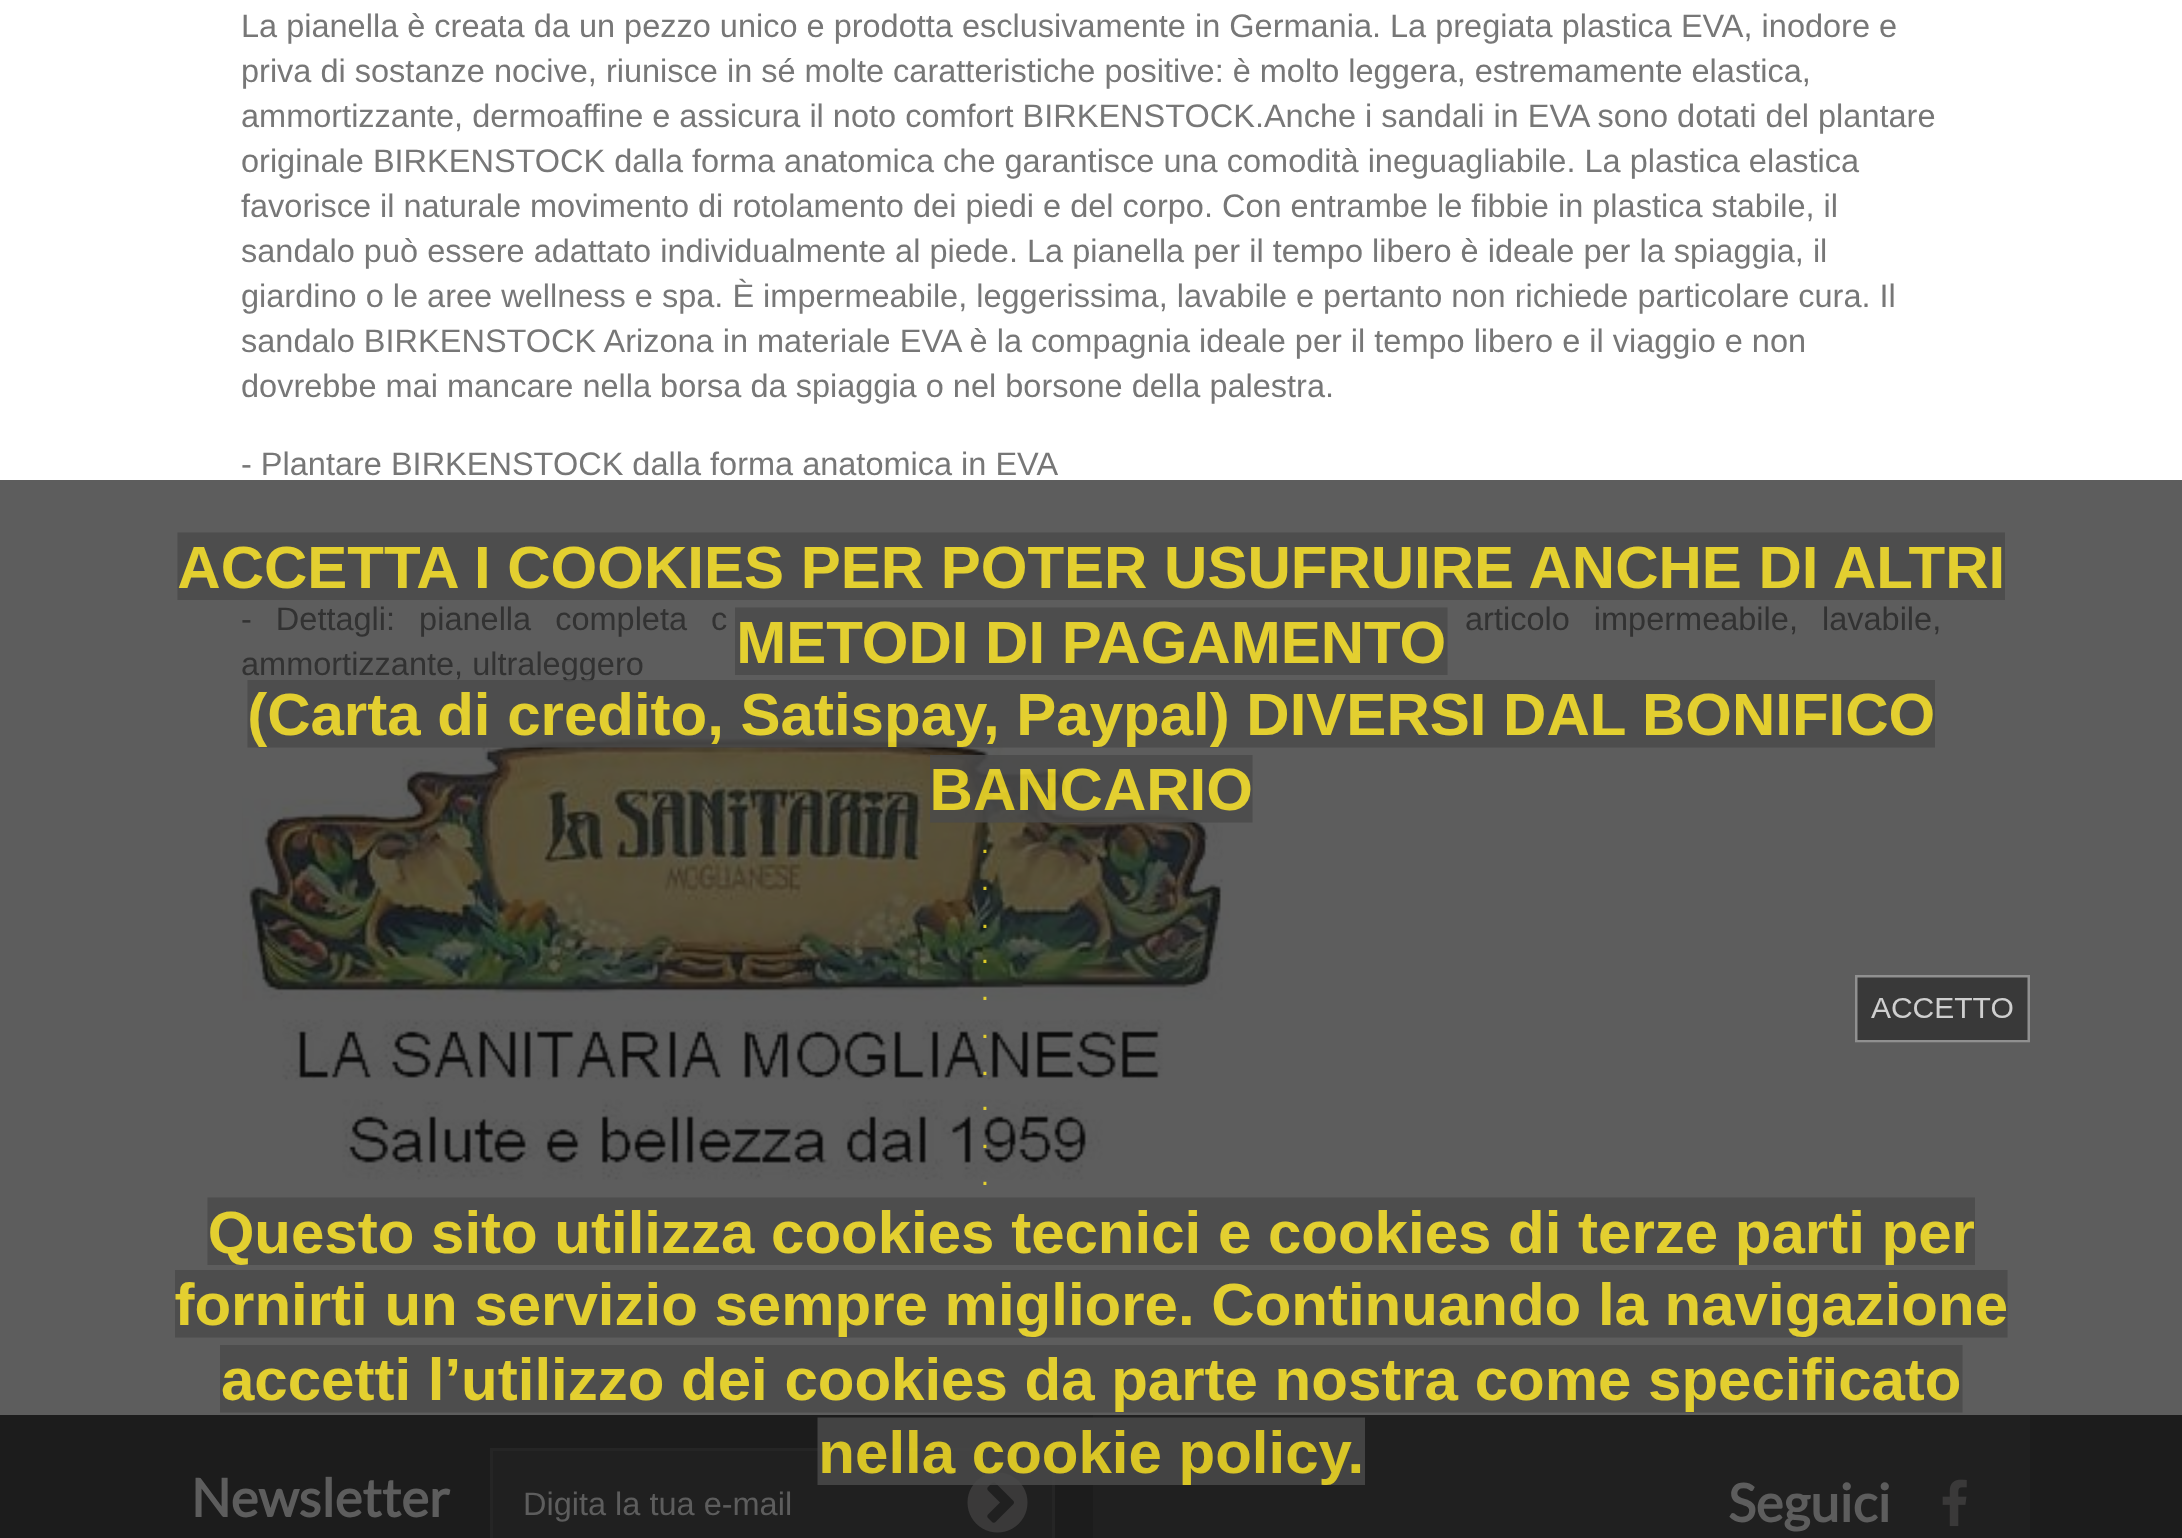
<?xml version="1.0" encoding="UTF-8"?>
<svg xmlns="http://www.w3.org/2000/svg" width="2182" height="1538">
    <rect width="100%" height="100%" fill="#1C1C1C"/>
    <rect x="0" y="0" width="2182" height="480" fill="#FFFFFF"/>
    <rect x="0" y="480" width="2182" height="935" fill="#5D5D5D"/>
    <text font-family="Liberation Sans" font-size="32.5" fill="#777777">
        <tspan x="241" y="37">La pianella è creata da un pezzo unico e prodotta esclusivamente in Germania. La pregiata plastica EVA, inodore e</tspan>
        <tspan x="241" y="82">priva di sostanze nocive, riunisce in sé molte caratteristiche positive: è molto leggera, estremamente elastica,</tspan>
        <tspan x="241" y="127">ammortizzante, dermoaffine e assicura il noto comfort BIRKENSTOCK.Anche i sandali in EVA sono dotati del plantare</tspan>
        <tspan x="241" y="172">originale BIRKENSTOCK dalla forma anatomica che garantisce una comodità ineguagliabile. La plastica elastica</tspan>
        <tspan x="241" y="217">favorisce il naturale movimento di rotolamento dei piedi e del corpo. Con entrambe le fibbie in plastica stabile, il</tspan>
        <tspan x="241" y="262">sandalo può essere adattato individualmente al piede. La pianella per il tempo libero è ideale per la spiaggia, il</tspan>
        <tspan x="241" y="307">giardino o le aree wellness e spa. È impermeabile, leggerissima, lavabile e pertanto non richiede particolare cura. Il</tspan>
        <tspan x="241" y="352">sandalo BIRKENSTOCK Arizona in materiale EVA è la compagnia ideale per il tempo libero e il viaggio e non</tspan>
        <tspan x="241" y="397">dovrebbe mai mancare nella borsa da spiaggia o nel borsone della palestra.</tspan>
    </text>
    <text x="241" y="475" font-family="Liberation Sans" font-size="32.5" fill="#777777">- Plantare BIRKENSTOCK dalla forma anatomica in EVA</text>
    <text x="241" y="630" word-spacing="15" font-family="Liberation Sans" font-size="32.5" fill="#323232">- Dettagli: pianella completa c</text>
    <text x="1465" y="630" word-spacing="15" font-family="Liberation Sans" font-size="32.5" fill="#323232">articolo impermeabile, lavabile,</text>
    <text x="241" y="675" font-family="Liberation Sans" font-size="32.5" fill="#323232">ammortizzante, ultraleggero</text>
    <image x="242" y="719" width="988" height="461" href="img_01.png"/>
    <text x="191" y="1517" font-family="Lato" font-size="52.5" font-weight="700" fill="#5D5D5D">Newsletter</text>
    <rect x="491.5" y="1449.5" width="562" height="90" fill="#202020" stroke="#252525" stroke-width="3"/>
    <text x="523" y="1515" font-family="Liberation Sans" font-size="32.5" fill="#5D5D5D">Digita la tua e-mail</text>
    <image x="967" y="1472" width="61" height="61" href="img_02.png"/>
    <rect x="1093" y="1415" width="937" height="123" fill="#202020"/>
    <text x="1728" y="1522" font-family="Lato" font-size="52.5" font-weight="700" fill="#5D5D5D">Seguici</text>
    <image x="1942" y="1479" width="25" height="48" href="img_03.png"/>
    <image x="175" y="532" width="1855" height="953" href="img_04.png"/>
</svg>
